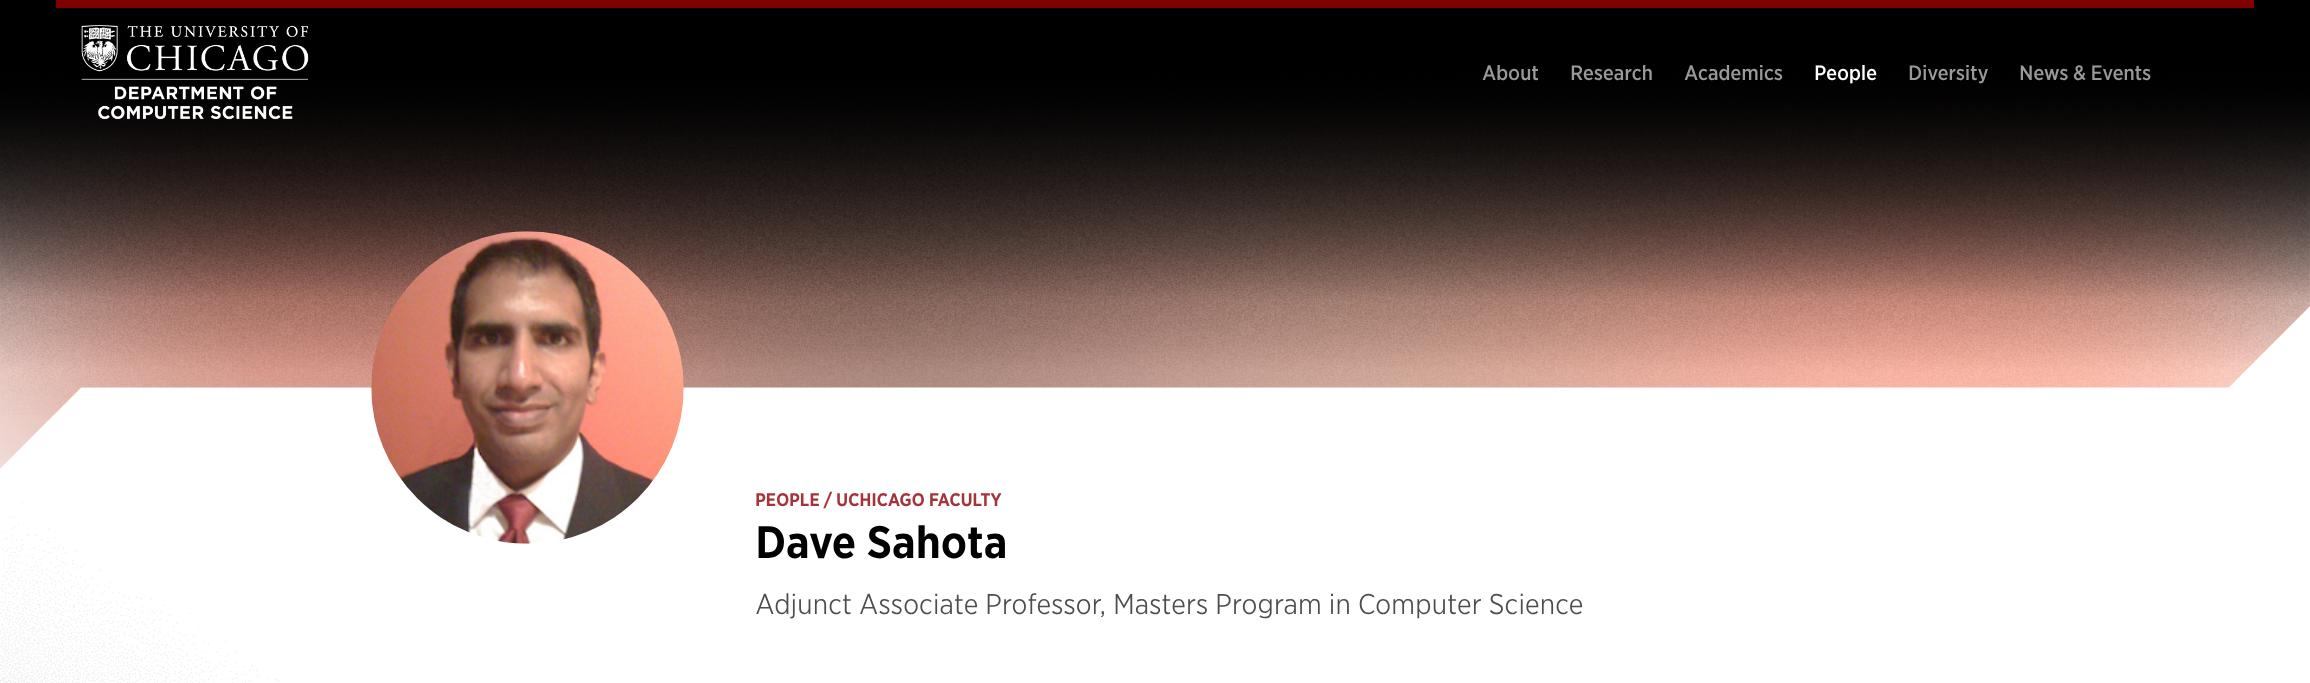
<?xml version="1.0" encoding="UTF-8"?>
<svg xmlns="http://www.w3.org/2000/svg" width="2310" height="683">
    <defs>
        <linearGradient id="g1" gradientUnits="userSpaceOnUse" x1="1155" y1="0" x2="1155" y2="375"><stop offset="0.17" stop-color="#000000"/><stop offset="0.8" stop-color="#000000" stop-opacity="0.1"/><stop offset="0.99" stop-color="#000000" stop-opacity="0"/></linearGradient>
    </defs>
    <rect width="100%" height="100%" fill="#FFFFFF"/>
    <image x="0" y="65" width="2310" height="404" href="img_03.png"/>
    <image x="0" y="65" width="2310" height="350" href="img_04.png"/>
    <path d="M 0 0 V 375 H 2241 L 2310 306 V 0 Z" fill="url(#g1)"/>
    <path d="M 0 0 V 375 H 2241 L 2310 306 V 0 Z" fill="url(#g1)"/>
    <rect x="56" y="0" width="2198" height="8" fill="#800000"/>
    <image x="81" y="25" width="228" height="95" href="img_01.png"/>
    <text x="1482" y="80" font-family="'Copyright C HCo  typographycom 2'" font-size="20" font-weight="300" letter-spacing="-0.3" fill="#999999">About</text>
    <text x="1570" y="80" font-family="'Copyright C HCo  typographycom 2'" font-size="20" font-weight="300" letter-spacing="-0.3" fill="#999999">Research</text>
    <text x="1684" y="80" font-family="'Copyright C HCo  typographycom 2'" font-size="20" font-weight="300" letter-spacing="-0.3" fill="#999999">Academics</text>
    <text x="1814" y="80" font-family="'Copyright C HCo  typographycom 2'" font-size="20" font-weight="300" letter-spacing="-0.3" fill="#FFFFFF">People</text>
    <text x="1908" y="80" font-family="'Copyright C HCo  typographycom 2'" font-size="20" font-weight="300" letter-spacing="-0.3" fill="#999999">Diversity</text>
    <text x="2019" y="80" font-family="'Copyright C HCo  typographycom 2'" font-size="20" font-weight="300" letter-spacing="-0.3" fill="#999999">News &amp; Events</text>
    <image x="0" y="502" width="279" height="181" href="img_02.png"/>
    <image x="371" y="231" width="313" height="313" href="img_05.png"/>
    <text x="755" y="506" font-family="'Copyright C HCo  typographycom'" font-size="17.5" letter-spacing="-0.3" fill="#A4343A">PEOPLE / UCHICAGO FACULTY</text>
    <text x="755" y="558" font-family="'Copyright C HCo  typographycom'" font-size="43.75" letter-spacing="-0.5" fill="#000000">Dave Sahota</text>
    <text x="755" y="614" font-family="'Copyright C HCo  typographycom'" font-size="27.5" font-weight="300" letter-spacing="-0.3" fill="#4D4D4D">Adjunct Associate Professor, Masters Program in Computer Science</text>
</svg>
